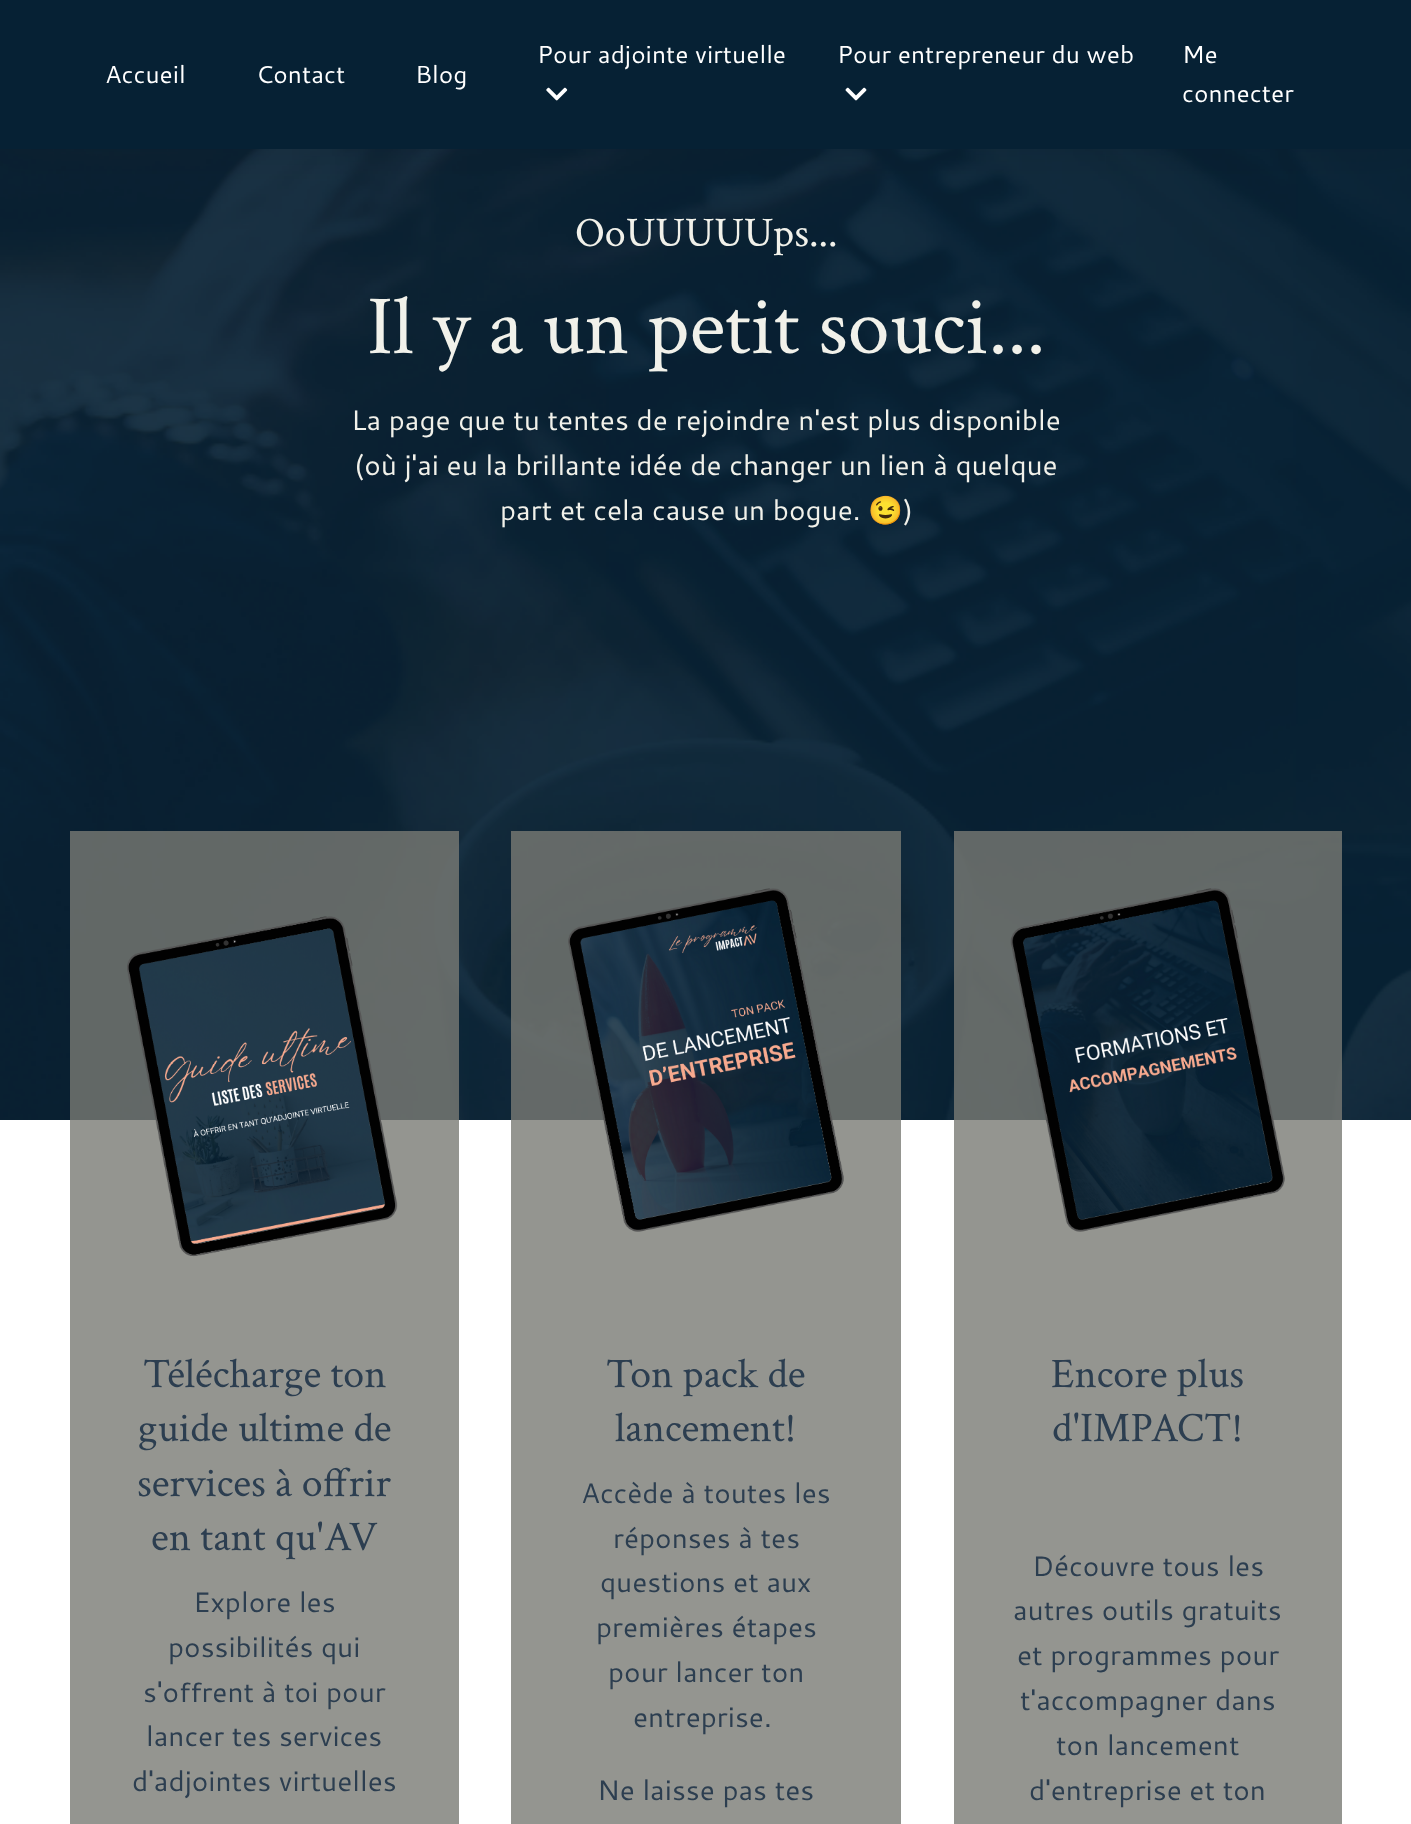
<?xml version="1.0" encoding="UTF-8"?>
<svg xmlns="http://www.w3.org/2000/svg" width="1411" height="1824">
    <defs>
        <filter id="blur1" x="-50%" y="-200%" width="200%" height="500%"><feGaussianBlur stdDeviation="17.5"/></filter>
    </defs>
    <rect width="100%" height="100%" fill="#FFFFFF"/>
    <image x="0" y="149" width="1411" height="971" href="img_03.png"/>
    <rect x="0" y="7" width="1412" height="149" fill="#000000" fill-opacity="0.07" filter="url(#blur1)"/>
    <rect x="0" y="0" width="1411" height="149" fill="#062134"/>
    <text x="105" y="83" font-family="Cantarell" font-size="24.5" fill="#FFFFFF">Accueil</text>
    <text x="256" y="83" font-family="Cantarell" font-size="24.5" fill="#FFFFFF">Contact</text>
    <text x="415" y="83" font-family="Cantarell" font-size="24.5" fill="#FFFFFF">Blog</text>
    <text x="537" y="63" font-family="Cantarell" font-size="24.5" fill="#FFFFFF">Pour adjointe virtuelle</text>
    <image x="546" y="87" width="22" height="14" href="img_01.png"/>
    <text x="837" y="63" font-family="Cantarell" font-size="24.5" fill="#FFFFFF">Pour entrepreneur du web</text>
    <image x="845" y="87" width="22" height="14" href="img_02.png"/>
    <text font-family="Cantarell" font-size="24.5" fill="#FFFFFF">
        <tspan x="1182" y="63">Me</tspan>
        <tspan x="1182" y="102">connecter</tspan>
    </text>
    <text x="575" y="246" font-family="Crimson Text" font-size="42" fill="#F1F1EA">OoUUUUUps...</text>
    <text x="367" y="353" font-family="Crimson Text" font-size="84" fill="#F1F1EA">Il y a un petit souci...</text>
    <text x="351" y="430" font-family="Cantarell" font-size="28" fill="#F1F1EA">La page que tu tentes de rejoindre n'est plus disponible</text>
    <text x="354" y="475" font-family="Cantarell" font-size="28" fill="#F1F1EA">(où j'ai eu la brillante idée de changer un lien à quelque</text>
    <text x="500" y="520" font-family="Cantarell" font-size="28" fill="#F1F1EA">part et cela cause un bogue.</text>
    <text x="868" y="520" font-family="Noto Color Emoji" font-size="28" fill="#F1F1EA">😉</text>
    <text x="903" y="520" font-family="Cantarell" font-size="28" fill="#F1F1EA">)</text>
    <rect x="70" y="831" width="389" height="993" fill="#797B74" fill-opacity="0.8"/>
    <image x="127" y="916" width="271" height="341" href="img_04.png"/>
    <text x="143" y="1387" font-family="Crimson Text" font-size="42" fill="#2C3E50">Télécharge ton</text>
    <text x="138" y="1441" font-family="Crimson Text" font-size="42" fill="#2C3E50">guide ultime de</text>
    <text x="137" y="1496" font-family="Crimson Text" font-size="42" fill="#2C3E50">services à offrir</text>
    <text x="151" y="1550" font-family="Crimson Text" font-size="42" fill="#2C3E50">en tant qu'AV</text>
    <text x="193" y="1612" font-family="Cantarell" font-size="28" fill="#2C3E50">Explore les</text>
    <text x="168" y="1657" font-family="Cantarell" font-size="28" fill="#2C3E50">possibilités qui</text>
    <text x="143" y="1702" font-family="Cantarell" font-size="28" fill="#2C3E50">s'offrent à toi pour</text>
    <text x="146" y="1746" font-family="Cantarell" font-size="28" fill="#2C3E50">lancer tes services</text>
    <text x="132" y="1791" font-family="Cantarell" font-size="28" fill="#2C3E50">d'adjointes virtuelles</text>
    <rect x="511" y="831" width="390" height="993" fill="#797B74" fill-opacity="0.8"/>
    <image x="568" y="888" width="276" height="344" href="img_05.png"/>
    <text x="606" y="1387" font-family="Crimson Text" font-size="42" fill="#2C3E50">Ton pack de</text>
    <text x="615" y="1441" font-family="Crimson Text" font-size="42" fill="#2C3E50">lancement!</text>
    <text x="581" y="1503" font-family="Cantarell" font-size="28" fill="#2C3E50">Accède à toutes les</text>
    <text x="613" y="1548" font-family="Cantarell" font-size="28" fill="#2C3E50">réponses à tes</text>
    <text x="600" y="1592" font-family="Cantarell" font-size="28" fill="#2C3E50">questions et aux</text>
    <text x="596" y="1637" font-family="Cantarell" font-size="28" fill="#2C3E50">premières étapes</text>
    <text x="608" y="1682" font-family="Cantarell" font-size="28" fill="#2C3E50">pour lancer ton</text>
    <text x="633" y="1727" font-family="Cantarell" font-size="28" fill="#2C3E50">entreprise.</text>
    <text x="597" y="1800" font-family="Cantarell" font-size="28" fill="#2C3E50">Ne laisse pas tes</text>
    <rect x="954" y="831" width="388" height="993" fill="#797B74" fill-opacity="0.8"/>
    <image x="1010" y="888" width="275" height="344" href="img_06.png"/>
    <text x="1051" y="1387" font-family="Crimson Text" font-size="42" fill="#2C3E50">Encore plus</text>
    <text x="1052" y="1441" font-family="Crimson Text" font-size="42" fill="#2C3E50">d'IMPACT!</text>
    <text x="1032" y="1576" font-family="Cantarell" font-size="28" fill="#2C3E50">Découvre tous les</text>
    <text x="1013" y="1620" font-family="Cantarell" font-size="28" fill="#2C3E50">autres outils gratuits</text>
    <text x="1017" y="1665" font-family="Cantarell" font-size="28" fill="#2C3E50">et programmes pour</text>
    <text x="1020" y="1710" font-family="Cantarell" font-size="28" fill="#2C3E50">t'accompagner dans</text>
    <text x="1056" y="1755" font-family="Cantarell" font-size="28" fill="#2C3E50">ton lancement</text>
    <text x="1029" y="1800" font-family="Cantarell" font-size="28" fill="#2C3E50">d'entreprise et ton</text>
</svg>
